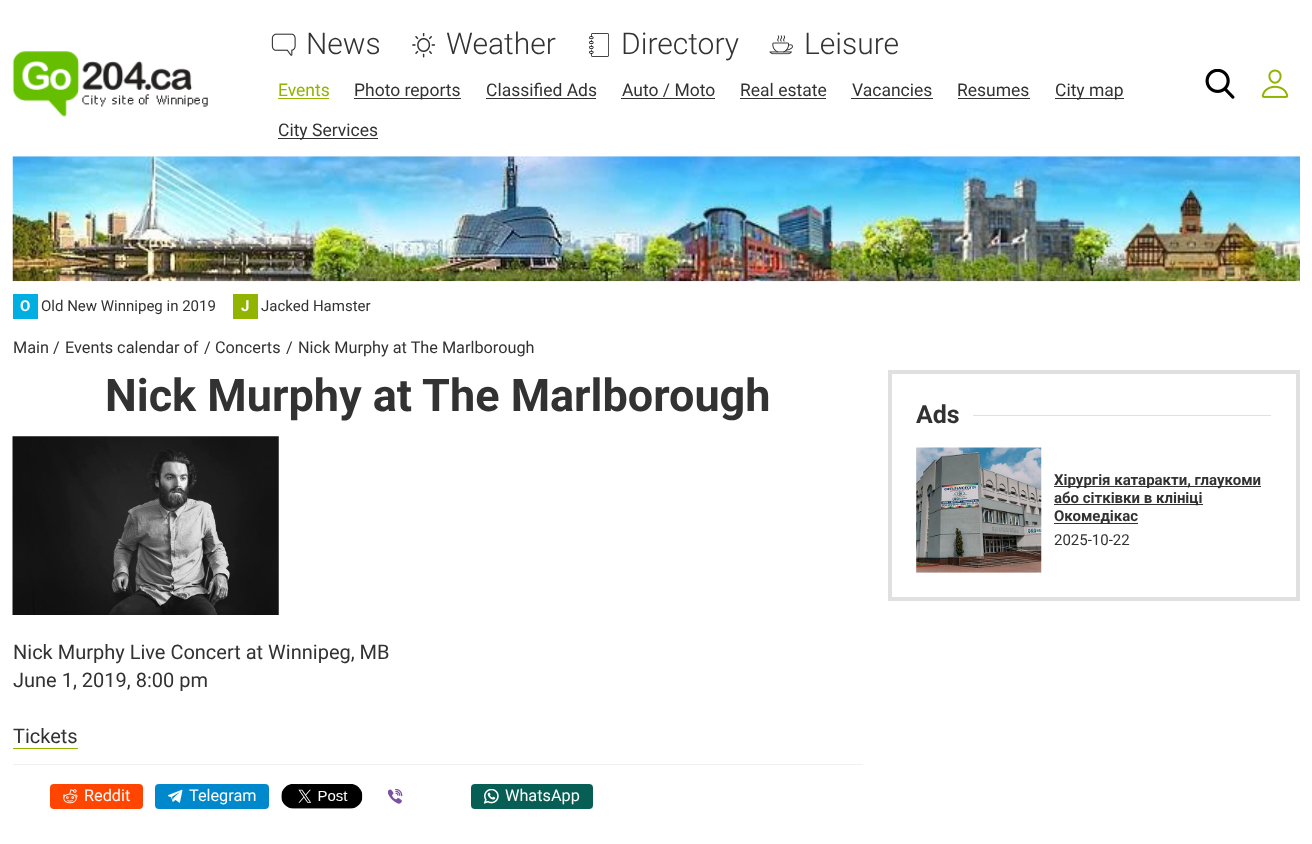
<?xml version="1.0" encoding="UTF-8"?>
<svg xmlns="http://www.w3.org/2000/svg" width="1312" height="844">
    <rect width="100%" height="100%" fill="#FFFFFF"/>
    <image x="12" y="51" width="196" height="66" href="img_01.png"/>
    <image x="271" y="33" width="25" height="23" href="img_02.png"/>
    <text x="306" y="54" font-family="Roboto" font-size="30" font-weight="300" fill="#323232">News</text>
    <image x="412" y="33" width="24" height="25" href="img_03.png"/>
    <text x="446" y="54" font-family="Roboto" font-size="30" font-weight="300" fill="#323232">Weather</text>
    <image x="589" y="33" width="20" height="24" href="img_04.png"/>
    <text x="621" y="54" font-family="Roboto" font-size="30" font-weight="300" fill="#323232">Directory</text>
    <image x="769" y="35" width="24" height="20" href="img_05.png"/>
    <text x="804" y="54" font-family="Roboto" font-size="30" font-weight="300" fill="#323232">Leisure</text>
    <text x="278" y="96" font-family="Roboto" font-size="17.5" fill="#90B400">Events</text>
    <rect x="278" y="98" width="51" height="1" fill="#90B400"/>
    <rect x="354" y="98" width="107" height="1" fill="#323232"/>
    <text x="354" y="96" font-family="Roboto" font-size="17.5" fill="#323232">Photo reports</text>
    <text x="486" y="96" font-family="Roboto" font-size="17.5" fill="#323232">Classified Ads</text>
    <rect x="486" y="98" width="110" height="1" fill="#323232"/>
    <text x="622" y="96" font-family="Roboto" font-size="17.5" fill="#323232">Auto / Moto</text>
    <rect x="621" y="98" width="94" height="1" fill="#323232"/>
    <text x="740" y="96" font-family="Roboto" font-size="17.5" fill="#323232">Real estate</text>
    <rect x="740" y="98" width="86" height="1" fill="#323232"/>
    <text x="852" y="96" font-family="Roboto" font-size="17.5" fill="#323232">Vacancies</text>
    <rect x="851" y="98" width="82" height="1" fill="#323232"/>
    <text x="957" y="96" font-family="Roboto" font-size="17.5" fill="#323232">Resumes</text>
    <rect x="958" y="98" width="72" height="1" fill="#323232"/>
    <rect x="1055" y="98" width="69" height="1" fill="#323232"/>
    <text x="1055" y="96" font-family="Roboto" font-size="17.5" fill="#323232">City map</text>
    <rect x="278" y="138" width="100" height="1" fill="#323232"/>
    <text x="278" y="136" font-family="Roboto" font-size="17.5" fill="#323232">City Services</text>
    <image x="1205" y="69" width="30" height="30" href="img_06.png"/>
    <image x="1261" y="69" width="28" height="29" href="img_07.png"/>
    <image x="12" y="156" width="1288" height="126" href="img_08.png"/>
    <rect x="13" y="294" width="25" height="25" fill="#00AFE1"/>
    <text x="20" y="311" font-family="Roboto" font-size="15" font-weight="700" fill="#FFFFFF">O</text>
    <text x="41" y="311" font-family="Roboto" font-size="15" fill="#323232">Old New Winnipeg in 2019</text>
    <rect x="233" y="294" width="25" height="25" fill="#90B400"/>
    <text x="241" y="311" font-family="Roboto" font-size="15" font-weight="700" fill="#FFFFFF">J</text>
    <text x="261" y="311" font-family="Roboto" font-size="15" fill="#323232">Jacked Hamster</text>
    <text x="13" y="353" font-family="Roboto" font-size="16.25" fill="#323232">Main</text>
    <text x="53" y="353" font-family="Roboto" font-size="16.25" fill="#323232">/</text>
    <text x="65" y="353" font-family="Roboto" font-size="16.25" fill="#323232">Events calendar of</text>
    <text x="204" y="353" font-family="Roboto" font-size="16.25" fill="#323232">/</text>
    <text x="215" y="353" font-family="Roboto" font-size="16.25" fill="#323232">Concerts</text>
    <text x="286" y="353" font-family="Roboto" font-size="16.25" fill="#323232">/</text>
    <text x="298" y="353" font-family="Roboto" font-size="16.25" fill="#323232">Nick Murphy at The Marlborough</text>
    <text x="105" y="411" font-family="Roboto" font-size="45" font-weight="700" fill="#323232">Nick Murphy at The Marlborough</text>
    <image x="12" y="436" width="267" height="179" href="img_09.png"/>
    <text font-family="Roboto" font-size="20" fill="#323232">
        <tspan x="13" y="659">Nick Murphy Live Concert at Winnipeg, MB</tspan>
        <tspan x="13" y="687">June 1, 2019, 8:00 pm</tspan>
    </text>
    <text x="13" y="743" font-family="Roboto" font-size="20" fill="#323232">Tickets</text>
    <rect x="13" y="748" width="65" height="1" fill="#90B400"/>
    <rect x="13" y="764" width="850" height="1" fill="#F0F0F0"/>
    <rect x="50" y="784" width="93" height="25" rx="4" fill="#FF4500"/>
    <image x="63" y="789" width="15" height="15" href="img_10.png"/>
    <text x="84" y="801" font-family="Roboto" font-size="16.25" fill="#FFFFFF">Reddit</text>
    <rect x="155" y="784" width="114" height="25" rx="4" fill="#0088CC"/>
    <image x="168" y="789" width="15" height="14" href="img_11.png"/>
    <text x="189" y="801" font-family="Roboto" font-size="16.25" fill="#FFFFFF">Telegram</text>
    <image x="281" y="784" width="82" height="25" href="img_12.png"/>
    <image x="388" y="789" width="15" height="15" href="img_13.png"/>
    <rect x="471" y="784" width="122" height="25" rx="4" fill="#075E54"/>
    <image x="484" y="789" width="15" height="15" href="img_14.png"/>
    <text x="505" y="801" font-family="Roboto" font-size="16.25" fill="#FFFFFF">WhatsApp</text>
    <rect x="890" y="372" width="408" height="227" fill="none" stroke="#E0E0E0" stroke-width="4"/>
    <text x="916" y="423" font-family="Roboto" font-size="25" font-weight="700" fill="#323232">Ads</text>
    <rect x="973" y="415" width="298" height="1" fill="#E0E0E0"/>
    <rect x="916" y="448" width="125" height="125" fill="#E6E6E6"/>
    <image x="916" y="447" width="126" height="126" href="img_15.png"/>
    <rect x="1054" y="486" width="207" height="1" fill="#323232"/>
    <text x="1054" y="485" font-family="Roboto" font-size="15" font-weight="700" fill="#323232">Хірургія катаракти, глаукоми</text>
    <rect x="1054" y="504" width="149" height="1" fill="#323232"/>
    <text x="1054" y="503" font-family="Roboto" font-size="15" font-weight="700" fill="#323232">або сітківки в клініці</text>
    <rect x="1054" y="523" width="84" height="1" fill="#323232"/>
    <text x="1054" y="521" font-family="Roboto" font-size="15" font-weight="700" fill="#323232">Окомедікас</text>
    <text x="1054" y="545" font-family="Roboto" font-size="15" fill="#323232">2025-10-22</text>
</svg>
